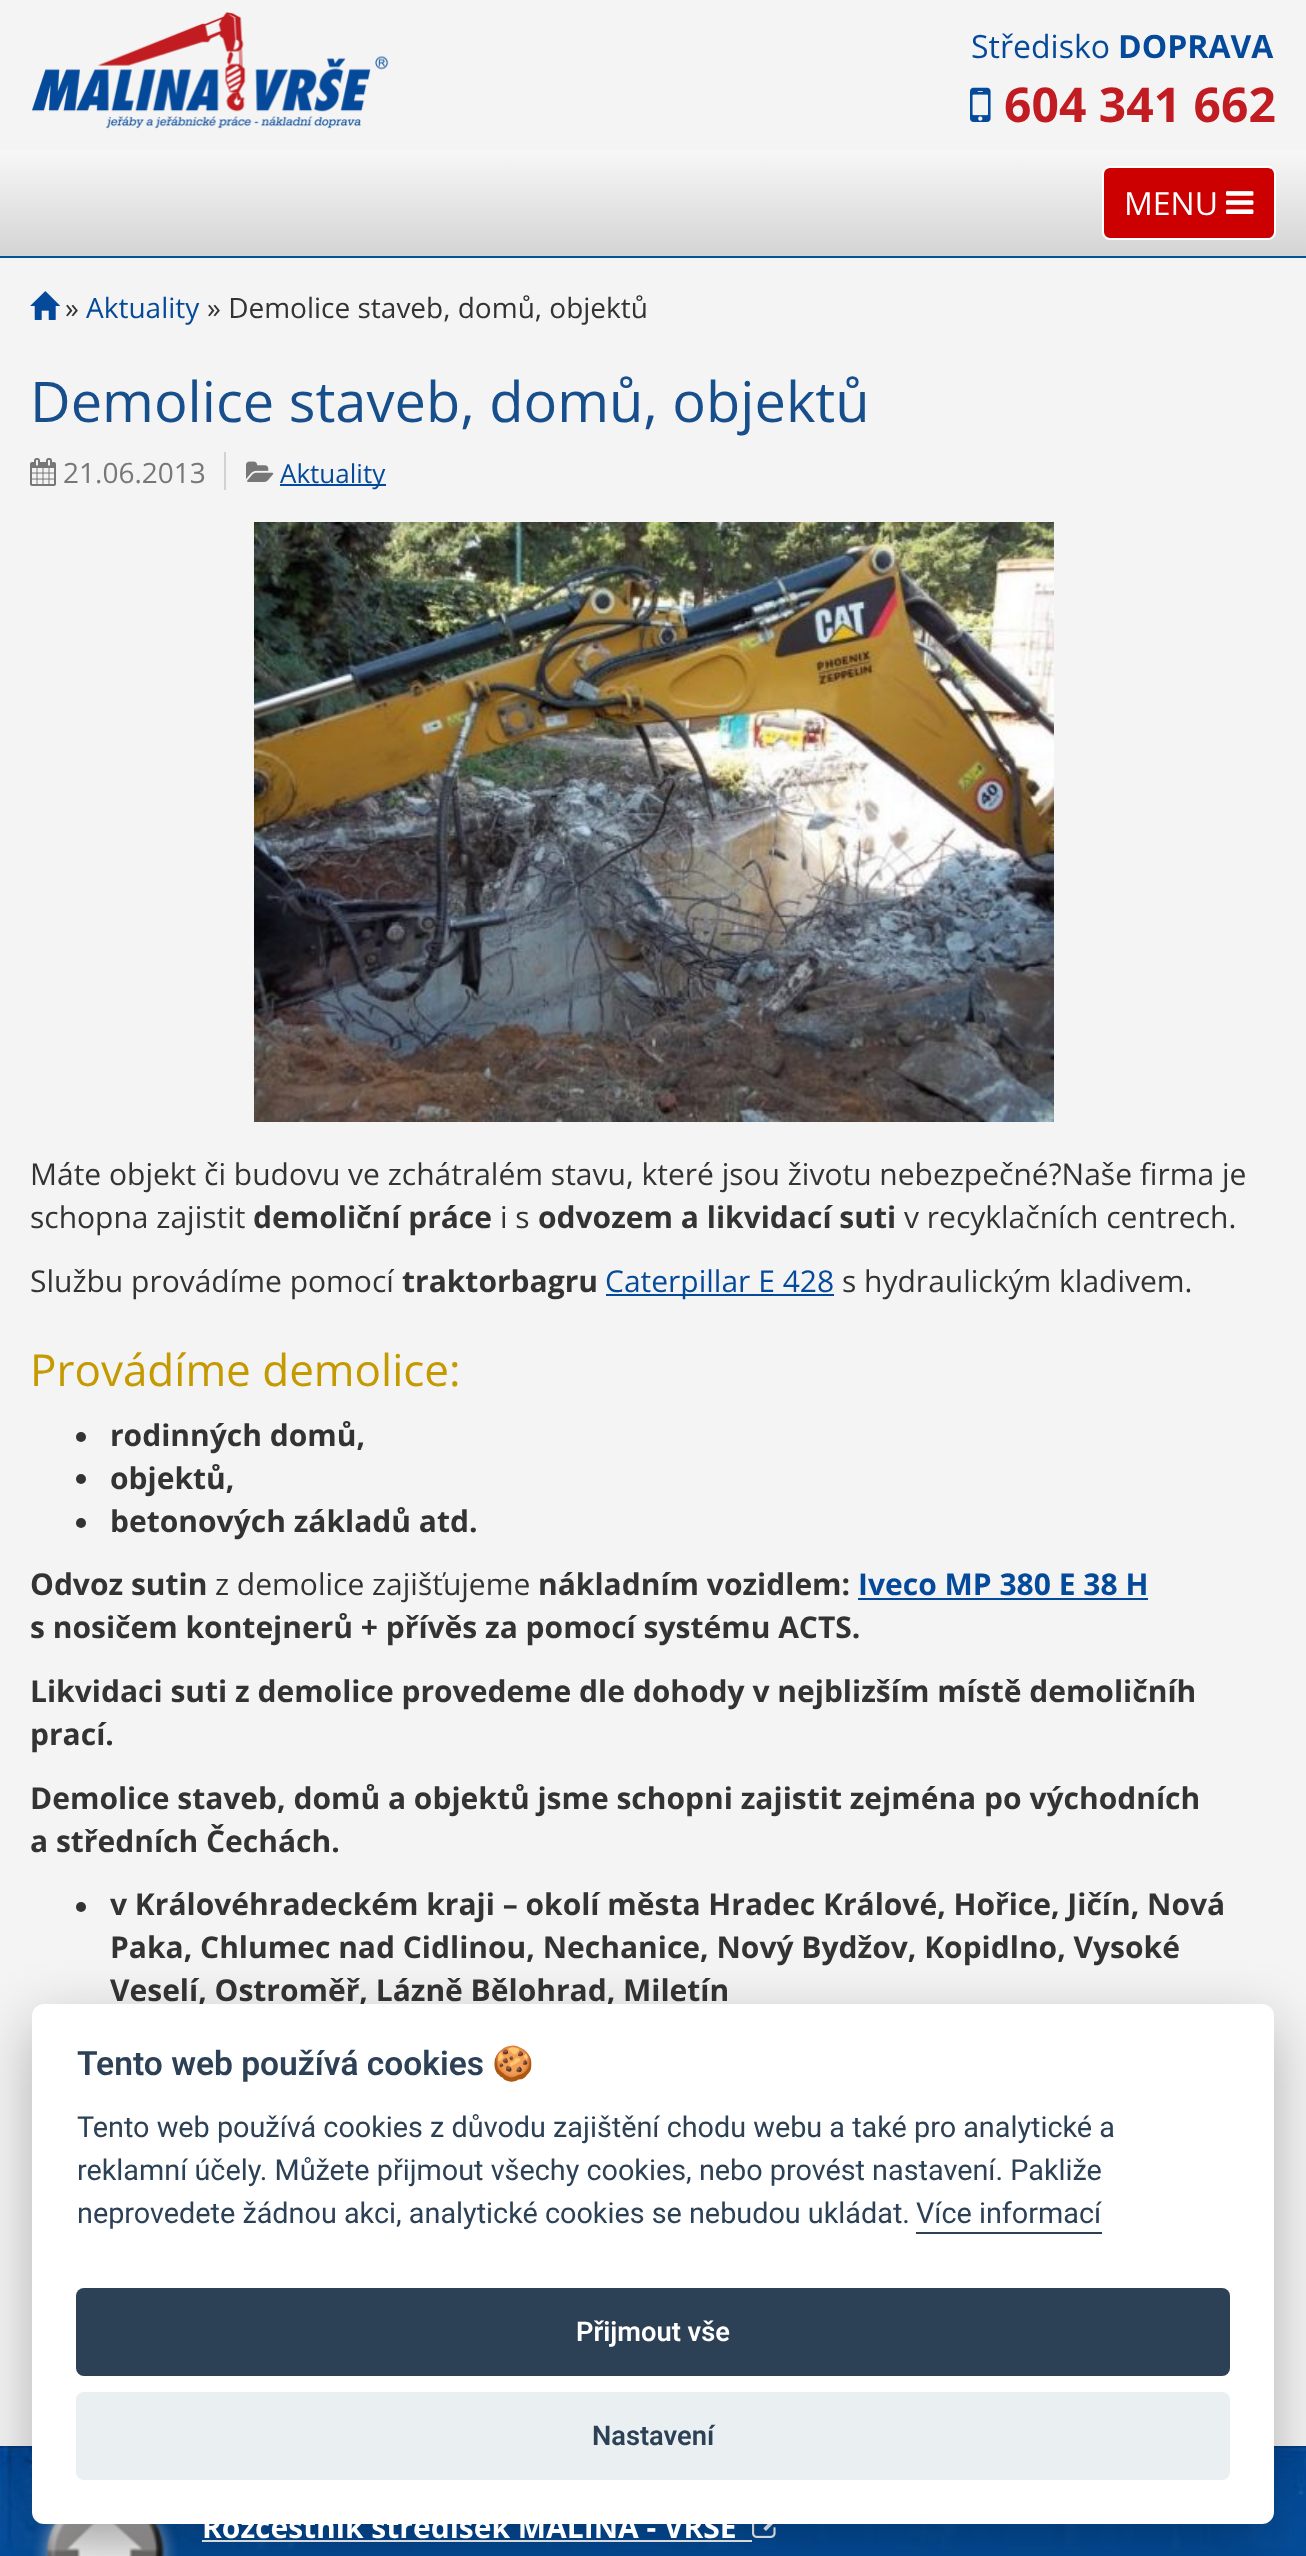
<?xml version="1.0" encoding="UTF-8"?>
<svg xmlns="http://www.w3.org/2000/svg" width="1306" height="2556">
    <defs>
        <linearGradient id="g1" gradientUnits="userSpaceOnUse" x1="653" y1="150" x2="653" y2="256"><stop offset="0" stop-color="#F7F7F7"/><stop offset="1" stop-color="#D4D4D4"/></linearGradient>
        <filter id="blur1" x="-50%" y="-200%" width="200%" height="500%"><feGaussianBlur stdDeviation="30"/></filter>
    </defs>
    <rect width="100%" height="100%" fill="#F4F4F4"/>
    <image x="32" y="12" width="357" height="117" href="img_01.png"/>
    <text x="971" y="58" font-family="Open Sans" font-size="32" fill="#054A9A">Středisko</text>
    <text x="1118" y="58" font-family="Open Sans" font-size="32" font-weight="700" fill="#054A9A">DOPRAVA</text>
    <image x="970" y="87" width="21" height="35" href="img_02.png"/>
    <text x="1004" y="122" font-family="Open Sans" font-size="48" font-weight="700" fill="#C01C21">604 341 662</text>
    <rect x="0" y="150" width="1306" height="106" fill="url(#g1)"/>
    <rect x="0" y="256" width="1306" height="2" fill="#025493"/>
    <rect x="1103" y="167" width="172" height="72" rx="7" fill="#CC0000" stroke="#FFFFFF" stroke-width="2"/>
    <text x="1124" y="215" font-family="Open Sans" font-size="32" fill="#FFFFFF">MENU</text>
    <image x="1226" y="191" width="28" height="23" href="img_03.png"/>
    <image x="30" y="291" width="30" height="29" href="img_04.png"/>
    <text x="65" y="318" font-family="Open Sans" font-size="28" fill="#333333">»</text>
    <text x="86" y="318" font-family="Open Sans" font-size="28" fill="#054A9A">Aktuality</text>
    <text x="207" y="318" font-family="Open Sans" font-size="28" fill="#333333">» Demolice staveb, domů, objektů</text>
    <text x="30" y="422" font-family="Open Sans" font-size="56" fill="#174E8C">Demolice staveb, domů, objektů</text>
    <rect x="224" y="452" width="2" height="38" fill="#D1D1D1"/>
    <image x="30" y="458" width="26" height="28" href="img_05.png"/>
    <text x="63" y="483" font-family="Open Sans" font-size="28" fill="#777777">21.06.2013</text>
    <image x="246" y="461" width="28" height="21" href="img_06.png"/>
    <rect x="280" y="484" width="106" height="2" fill="#054A9A"/>
    <text x="280" y="483" font-family="Open Sans" font-size="26" fill="#054A9A">Aktuality</text>
    <image x="254" y="522" width="800" height="600" href="img_07.png"/>
    <text font-family="Open Sans" font-size="30" fill="#333333">
        <tspan x="30" y="1185">Máte objekt či budovu ve zchátralém stavu, které jsou životu nebezpečné?Naše firma je</tspan>
        <tspan x="30" y="1228">schopna zajistit</tspan>
    </text>
    <text x="253" y="1228" font-family="Open Sans" font-size="30" font-weight="700" fill="#333333">demoliční práce</text>
    <text x="500" y="1228" font-family="Open Sans" font-size="30" fill="#333333">i s</text>
    <text x="538" y="1228" font-family="Open Sans" font-size="30" font-weight="700" fill="#333333">odvozem a likvidací suti</text>
    <text x="904" y="1228" font-family="Open Sans" font-size="30" fill="#333333">v recyklačních centrech.</text>
    <text x="30" y="1292" font-family="Open Sans" font-size="30" fill="#333333">Službu provádíme pomocí</text>
    <text x="402" y="1292" font-family="Open Sans" font-size="30" font-weight="700" fill="#333333">traktorbagru</text>
    <rect x="606" y="1294" width="228" height="2" fill="#054A9A"/>
    <text x="605" y="1292" font-family="Open Sans" font-size="30" fill="#054A9A">Caterpillar E 428</text>
    <text x="842" y="1292" font-family="Open Sans" font-size="30" fill="#333333">s hydraulickým kladivem.</text>
    <text x="30" y="1386" font-family="Open Sans" font-size="44" fill="#C59900">Provádíme demolice:</text>
    <circle cx="81" cy="1437" r="5" fill="#333333"/>
    <text x="110" y="1446" font-family="Open Sans" font-size="30" font-weight="700" fill="#333333">rodinných domů,</text>
    <circle cx="81" cy="1479" r="5" fill="#333333"/>
    <text x="110" y="1489" font-family="Open Sans" font-size="30" font-weight="700" fill="#333333">objektů,</text>
    <circle cx="81" cy="1523" r="5" fill="#333333"/>
    <text x="110" y="1532" font-family="Open Sans" font-size="30" font-weight="700" fill="#333333">betonových základů atd.</text>
    <text x="30" y="1595" font-family="Open Sans" font-size="30" font-weight="700" fill="#333333">Odvoz sutin</text>
    <text x="215" y="1595" font-family="Open Sans" font-size="30" fill="#333333">z demolice zajišťujeme</text>
    <text x="538" y="1595" font-family="Open Sans" font-size="30" font-weight="700" fill="#333333">nákladním vozidlem:</text>
    <text x="858" y="1595" font-family="Open Sans" font-size="30" font-weight="700" fill="#054A9A">Iveco MP 380 E 38 H</text>
    <rect x="858" y="1598" width="290" height="2" fill="#054A9A"/>
    <text x="30" y="1638" font-family="Open Sans" font-size="30" font-weight="700" fill="#333333">s nosičem kontejnerů + přívěs za pomocí systému ACTS.</text>
    <text font-family="Open Sans" font-size="30" font-weight="700" fill="#333333">
        <tspan x="30" y="1702">Likvidaci suti z demolice provedeme dle dohody v nejblizším místě demoličníh</tspan>
        <tspan x="30" y="1745">prací.</tspan>
    </text>
    <text font-family="Open Sans" font-size="30" font-weight="700" fill="#333333">
        <tspan x="30" y="1809">Demolice staveb, domů a objektů jsme schopni zajistit zejména po východních</tspan>
        <tspan x="30" y="1852">a středních Čechách.</tspan>
    </text>
    <circle cx="81" cy="1907" r="5" fill="#333333"/>
    <text font-family="Open Sans" font-size="30" font-weight="700" fill="#333333">
        <tspan x="110" y="1915">v Královéhradeckém kraji – okolí města Hradec Králové, Hořice, Jičín, Nová</tspan>
        <tspan x="110" y="1958">Paka, Chlumec nad Cidlinou, Nechanice, Nový Bydžov, Kopidlno, Vysoké</tspan>
        <tspan x="110" y="2001">Veselí, Ostroměř, Lázně Bělohrad, Miletín</tspan>
    </text>
    <rect x="0" y="2549" width="1306" height="7" fill="#034C9A"/>
    <image x="0" y="2446" width="1306" height="103" href="img_08.png"/>
    <image x="33" y="2523" width="144" height="33" href="img_09.png"/>
    <rect x="202" y="2540" width="550" height="2" fill="#FFFFFF"/>
    <image x="752" y="2524" width="24" height="14" href="img_10.png"/>
    <rect x="32" y="2024" width="1242" height="520" rx="12" fill="#020203" fill-opacity="0.28" filter="url(#blur1)"/>
    <rect x="32" y="2004" width="1242" height="520" rx="12" fill="#FFFFFF"/>
    <text x="77" y="2075" font-family="Roboto" font-size="33.6" font-weight="600" fill="#2D4156">Tento web používá cookies</text>
    <text x="492" y="2075" font-family="Noto Color Emoji" font-size="33.6" font-weight="700" fill="#2D4156">🍪</text>
    <text font-family="Roboto" font-size="28.8" fill="#2D4156">
        <tspan x="77" y="2137">Tento web používá cookies z důvodu zajištění chodu webu a také pro analytické a</tspan>
        <tspan x="77" y="2180">reklamní účely. Můžete přijmout všechy cookies, nebo provést nastavení. Pakliže</tspan>
        <tspan x="77" y="2223">neprovedete žádnou akci, analytické cookies se nebudou ukládat.</tspan>
    </text>
    <text x="916" y="2223" font-family="Roboto" font-size="28.8" fill="#2D4156">Více informací</text>
    <rect x="916" y="2232" width="186" height="2" fill="#2D4156"/>
    <rect x="76" y="2288" width="1154" height="88" rx="8" fill="#2D4156"/>
    <text x="576" y="2341" font-family="Roboto" font-size="27.25" font-weight="600" fill="#FFFFFF">Přijmout vše</text>
    <rect x="76" y="2392" width="1154" height="88" rx="8" fill="#EAEFF2"/>
    <text x="592" y="2445" font-family="Roboto" font-size="27.25" font-weight="600" fill="#2D4156">Nastavení</text>
    <text x="202" y="2538" font-family="Open Sans" font-size="30" font-weight="700" fill="#FFFFFF">Rozcestník středisek MALINA - VRŠE</text>
</svg>
